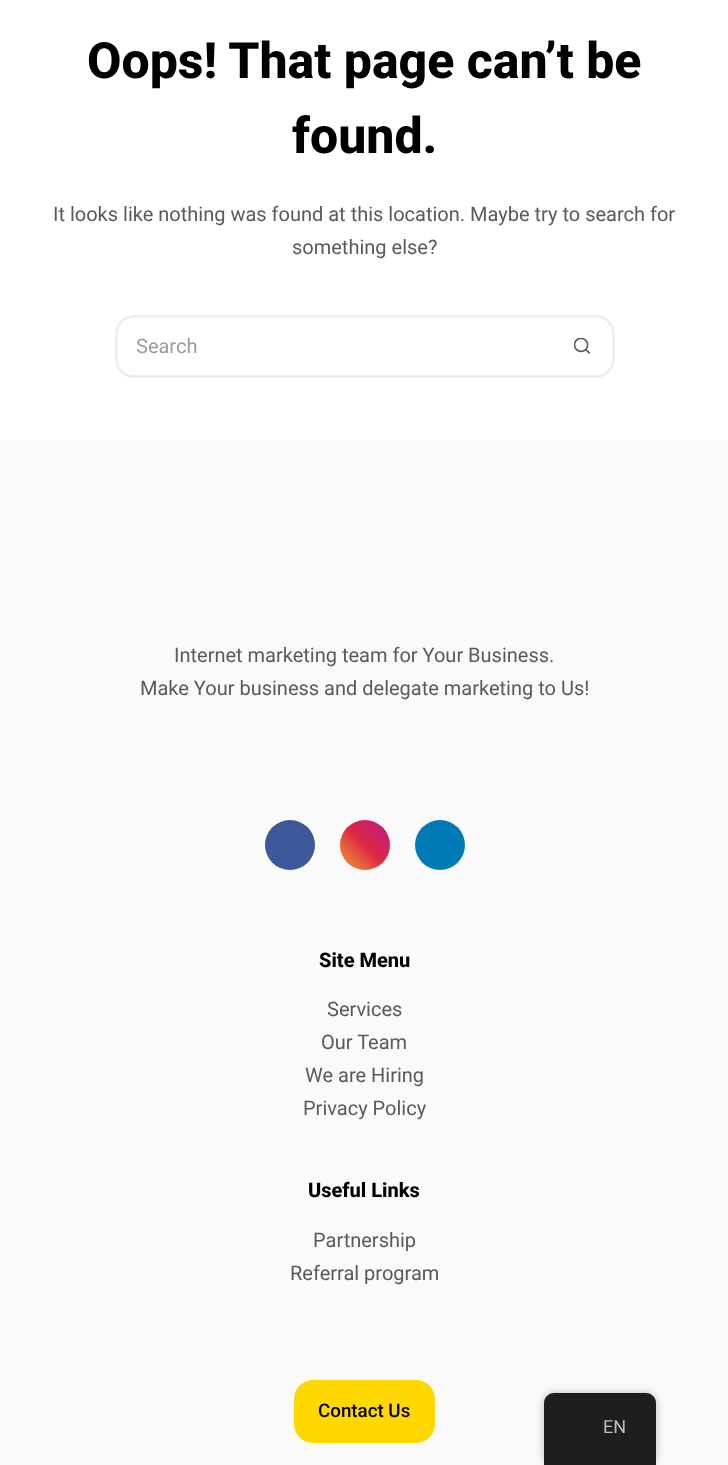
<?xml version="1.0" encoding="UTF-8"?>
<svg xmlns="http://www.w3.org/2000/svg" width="728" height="1465">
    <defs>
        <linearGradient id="g1" gradientUnits="userSpaceOnUse" x1="340" y1="870" x2="390" y2="820"><stop offset="0" stop-color="#F09433"/><stop offset="0.25" stop-color="#E6683C"/><stop offset="0.5" stop-color="#DC2743"/><stop offset="0.75" stop-color="#CC2366"/><stop offset="1" stop-color="#BC1888"/></linearGradient>
        <filter id="blur1" x="-50%" y="-200%" width="200%" height="500%"><feGaussianBlur stdDeviation="5"/></filter>
    </defs>
    <rect width="100%" height="100%" fill="#FFFFFF"/>
    <text x="87" y="78" font-family="Roboto" font-size="50" font-weight="800" fill="#000000">Oops! That page can’t be</text>
    <text x="292" y="153" font-family="Roboto" font-size="50" font-weight="800" fill="#000000">found.</text>
    <text x="53" y="221" font-family="Roboto" font-size="20" fill="#5A5A5A">It looks like nothing was found at this location. Maybe try to search for</text>
    <text x="292" y="254" font-family="Roboto" font-size="20" fill="#5A5A5A">something else?</text>
    <path d="M 134 315 H 552 V 378 H 134 C 123 378 115 369 115 359 V 334 C 115 323 123 315 134 315 Z M 134 318 H 552 V 375 H 134 C 125 375 118 368 118 359 V 334 C 118 325 125 318 134 318 Z" fill="#EDEFF2" fill-rule="evenodd"/>
    <text x="136" y="353" font-family="Roboto" font-size="20" fill="#9C9C9C">Search</text>
    <path d="M 552 315 H 596 C 607 315 615 323 615 334 V 359 C 615 369 607 378 596 378 H 552 Z M 552 318 H 596 C 605 318 612 325 612 334 V 359 C 612 368 605 375 596 375 H 552 Z" fill="#EDEFF2" fill-rule="evenodd"/>
    <image x="574" y="338" width="16" height="16" href="img_01.png"/>
    <rect x="0" y="440" width="728" height="1025" fill="#FAFAFA"/>
    <text x="174" y="662" font-family="Roboto" font-size="20" fill="#5A5A5A">Internet marketing team for Your Business.</text>
    <text x="140" y="695" font-family="Roboto" font-size="20" fill="#5A5A5A">Make Your business and delegate marketing to Us!</text>
    <circle cx="290" cy="845" r="25" fill="#3B5998"/>
    <circle cx="365" cy="845" r="25" fill="url(#g1)"/>
    <circle cx="440" cy="845" r="25" fill="#007BB6"/>
    <text x="319" y="967" font-family="Roboto" font-size="20" font-weight="800" fill="#000000">Site Menu</text>
    <text x="327" y="1016" font-family="Roboto" font-size="20" fill="#5A5A5A">Services</text>
    <text x="321" y="1049" font-family="Roboto" font-size="20" fill="#5A5A5A">Our Team</text>
    <text x="305" y="1082" font-family="Roboto" font-size="20" fill="#5A5A5A">We are Hiring</text>
    <text x="303" y="1115" font-family="Roboto" font-size="20" fill="#5A5A5A">Privacy Policy</text>
    <text x="308" y="1197" font-family="Roboto" font-size="20" font-weight="800" fill="#000000">Useful Links</text>
    <text x="313" y="1247" font-family="Roboto" font-size="20" fill="#5A5A5A">Partnership</text>
    <text x="290" y="1280" font-family="Roboto" font-size="20" fill="#5A5A5A">Referral program</text>
    <rect x="294" y="1380" width="141" height="63" rx="19" fill="#FFD800"/>
    <text x="318" y="1417" font-family="Roboto" font-size="18.75" font-weight="500" fill="#000000">Contact Us</text>
    <rect x="544" y="1393" width="112" height="72" rx="10" fill="#000000" fill-opacity="0.25" filter="url(#blur1)"/>
    <path d="M 554 1393 H 646 C 651.5 1393 656 1397.5 656 1403 V 1465 H 544 V 1403 C 544 1397.5 548.5 1393 554 1393 Z" fill="#1E1E1E"/>
    <text x="603" y="1433" font-family="Roboto" font-size="18" fill="#BDBDBD">EN</text>
</svg>
